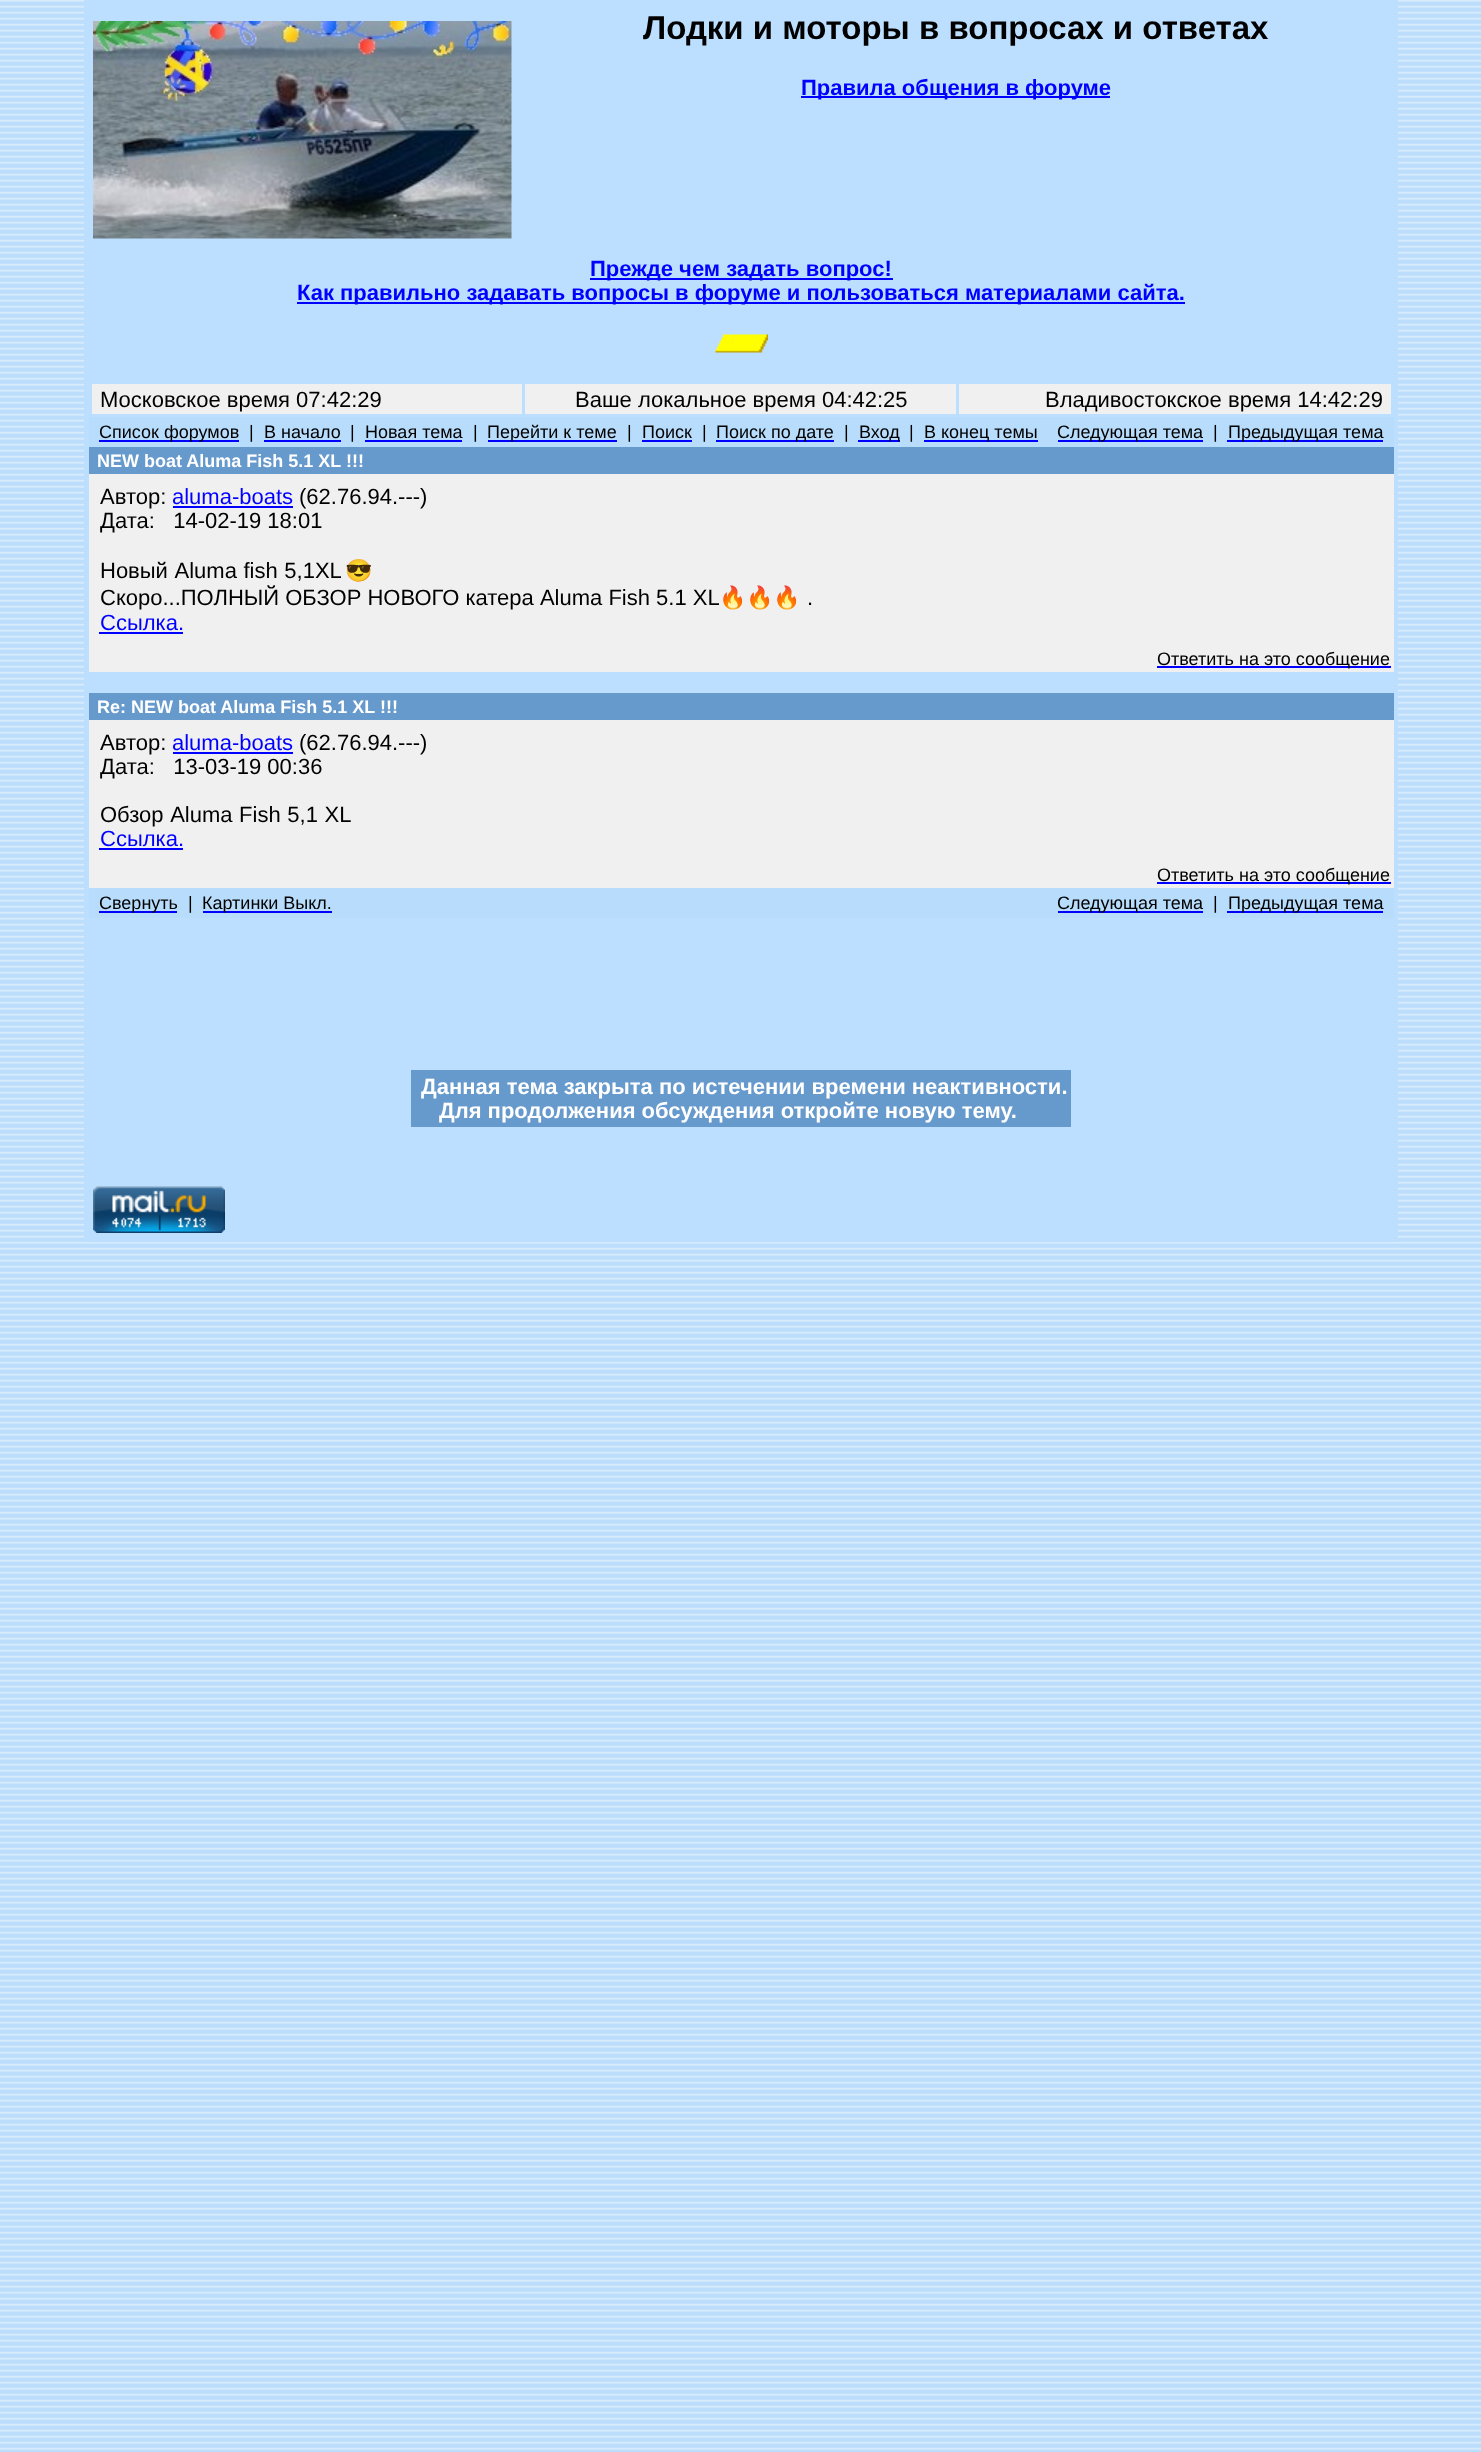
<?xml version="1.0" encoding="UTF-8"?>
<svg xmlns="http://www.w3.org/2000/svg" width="1481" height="2452">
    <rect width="100%" height="100%" fill="#FFFFFF"/>
    <image x="0" y="0" width="1481" height="2452" href="img_01.png"/>
    <rect x="84" y="0" width="1314" height="1242" fill="#BDDFFF"/>
    <image x="93" y="21" width="419" height="218" href="img_02.png"/>
    <text x="643" y="39" font-family="Liberation Sans" font-size="33" font-weight="700" fill="#000000">Лодки и моторы в вопросах и ответах</text>
    <rect x="801" y="96" width="309" height="2" fill="#0000FF"/>
    <text x="801" y="95" font-family="Liberation Sans" font-size="22" font-weight="700" fill="#0000FF">Правила общения в форуме</text>
    <rect x="590" y="278" width="303" height="2" fill="#0000FF"/>
    <text x="590" y="276" font-family="Liberation Sans" font-size="22" font-weight="700" fill="#0000FF">Прежде чем задать вопрос!</text>
    <rect x="297" y="302" width="888" height="2" fill="#0000FF"/>
    <text x="297" y="300" font-family="Liberation Sans" font-size="22" font-weight="700" fill="#0000FF">Как правильно задавать вопросы в форуме и пользоваться материалами сайта.</text>
    <image x="715" y="334" width="53" height="19" href="img_03.png"/>
    <rect x="92" y="384" width="430" height="30" fill="#F0F0F0"/>
    <text x="100" y="407" font-family="Liberation Sans" font-size="22" fill="#000000">Московское время 07:42:29</text>
    <rect x="525" y="384" width="431" height="30" fill="#F0F0F0"/>
    <text x="575" y="407" font-family="Liberation Sans" font-size="22" fill="#000000">Ваше локальное время 04:42:25</text>
    <rect x="959" y="384" width="432" height="30" fill="#F0F0F0"/>
    <text x="1045" y="407" font-family="Liberation Sans" font-size="22" fill="#000000">Владивостокское время 14:42:29</text>
    <rect x="89" y="417" width="1305" height="30" fill="#B8DDFC"/>
    <rect x="99" y="440" width="140" height="2" fill="#0000FF"/>
    <text x="99" y="438" font-family="Liberation Sans" font-size="18" fill="#000000">Список форумов</text>
    <text x="249" y="438" font-family="Liberation Sans" font-size="18" fill="#000000">|</text>
    <text x="264" y="438" font-family="Liberation Sans" font-size="18" fill="#000000">В начало</text>
    <rect x="264" y="440" width="77" height="2" fill="#0000FF"/>
    <text x="350" y="438" font-family="Liberation Sans" font-size="18" fill="#000000">|</text>
    <text x="365" y="438" font-family="Liberation Sans" font-size="18" fill="#000000">Новая тема</text>
    <rect x="365" y="440" width="97" height="2" fill="#0000FF"/>
    <text x="473" y="438" font-family="Liberation Sans" font-size="18" fill="#000000">|</text>
    <rect x="488" y="440" width="129" height="2" fill="#0000FF"/>
    <text x="487" y="438" font-family="Liberation Sans" font-size="18" fill="#000000">Перейти к теме</text>
    <text x="627" y="438" font-family="Liberation Sans" font-size="18" fill="#000000">|</text>
    <text x="642" y="438" font-family="Liberation Sans" font-size="18" fill="#000000">Поиск</text>
    <rect x="642" y="440" width="50" height="2" fill="#0000FF"/>
    <text x="702" y="438" font-family="Liberation Sans" font-size="18" fill="#000000">|</text>
    <rect x="716" y="440" width="118" height="2" fill="#0000FF"/>
    <text x="716" y="438" font-family="Liberation Sans" font-size="18" fill="#000000">Поиск по дате</text>
    <text x="844" y="438" font-family="Liberation Sans" font-size="18" fill="#000000">|</text>
    <rect x="858" y="440" width="42" height="2" fill="#0000FF"/>
    <text x="859" y="438" font-family="Liberation Sans" font-size="18" fill="#000000">Вход</text>
    <text x="909" y="438" font-family="Liberation Sans" font-size="18" fill="#000000">|</text>
    <rect x="924" y="440" width="114" height="2" fill="#0000FF"/>
    <text x="924" y="438" font-family="Liberation Sans" font-size="18" fill="#000000">В конец темы</text>
    <rect x="1058" y="440" width="145" height="2" fill="#0000FF"/>
    <text x="1057" y="438" font-family="Liberation Sans" font-size="18" fill="#000000">Следующая тема</text>
    <text x="1213" y="438" font-family="Liberation Sans" font-size="18" fill="#000000">|</text>
    <rect x="1227" y="440" width="156" height="2" fill="#0000FF"/>
    <text x="1228" y="438" font-family="Liberation Sans" font-size="18" fill="#000000">Предыдущая тема</text>
    <rect x="89" y="447" width="1305" height="27" fill="#6699CC"/>
    <text x="97" y="467" font-family="Liberation Sans" font-size="18" font-weight="700" fill="#FFFFFF">NEW boat Aluma Fish 5.1 XL !!!</text>
    <rect x="89" y="474" width="1305" height="198" fill="#F0F0F0"/>
    <text x="100" y="504" font-family="Liberation Sans" font-size="22" fill="#000000">Автор:</text>
    <text x="172" y="504" font-family="Liberation Sans" font-size="22" fill="#0000FF">aluma-boats</text>
    <rect x="173" y="506" width="120" height="2" fill="#0000FF"/>
    <text x="299" y="504" font-family="Liberation Sans" font-size="22" fill="#000000">(62.76.94.---)</text>
    <text x="100" y="528" font-family="Liberation Sans" font-size="22" fill="#000000" xml:space="preserve">Дата:   14-02-19 18:01</text>
    <text x="100" y="578" word-spacing="0.5" font-family="Liberation Sans" font-size="22" fill="#000000">Новый Aluma fish 5,1XL</text>
    <text x="345" y="578" font-family="Noto Color Emoji" font-size="22" fill="#000000">😎</text>
    <text x="100" y="605" font-family="Liberation Sans" font-size="22" fill="#000000">Скоро...ПОЛНЫЙ ОБЗОР НОВОГО катера Aluma Fish 5.1 XL</text>
    <text x="719" y="605" font-family="Noto Color Emoji" font-size="22" fill="#000000">🔥🔥🔥</text>
    <text x="807" y="605" font-family="Liberation Sans" font-size="22" fill="#000000">.</text>
    <text x="100" y="630" font-family="Liberation Sans" font-size="22" fill="#0000FF">Ссылка.</text>
    <rect x="99" y="632" width="84" height="2" fill="#0000FF"/>
    <rect x="1157" y="666" width="234" height="2" fill="#0000FF"/>
    <text x="1157" y="665" font-family="Liberation Sans" font-size="18" fill="#000000">Ответить на это сообщение</text>
    <rect x="89" y="693" width="1305" height="27" fill="#6699CC"/>
    <text x="97" y="713" font-family="Liberation Sans" font-size="18" font-weight="700" fill="#FFFFFF">Re: NEW boat Aluma Fish 5.1 XL !!!</text>
    <rect x="89" y="720" width="1305" height="168" fill="#F0F0F0"/>
    <text x="100" y="750" font-family="Liberation Sans" font-size="22" fill="#000000">Автор:</text>
    <text x="172" y="750" font-family="Liberation Sans" font-size="22" fill="#0000FF">aluma-boats</text>
    <rect x="173" y="752" width="120" height="2" fill="#0000FF"/>
    <text x="299" y="750" font-family="Liberation Sans" font-size="22" fill="#000000">(62.76.94.---)</text>
    <text x="100" y="774" font-family="Liberation Sans" font-size="22" fill="#000000" xml:space="preserve">Дата:   13-03-19 00:36</text>
    <text x="100" y="822" word-spacing="0.5" font-family="Liberation Sans" font-size="22" fill="#000000">Обзор Aluma Fish 5,1 ХL</text>
    <text x="100" y="846" font-family="Liberation Sans" font-size="22" fill="#0000FF">Ссылка.</text>
    <rect x="99" y="848" width="84" height="2" fill="#0000FF"/>
    <rect x="1157" y="882" width="234" height="2" fill="#0000FF"/>
    <text x="1157" y="881" font-family="Liberation Sans" font-size="18" fill="#000000">Ответить на это сообщение</text>
    <rect x="89" y="888" width="1305" height="30" fill="#B8DDFC"/>
    <rect x="99" y="911" width="78" height="2" fill="#0000FF"/>
    <text x="99" y="909" font-family="Liberation Sans" font-size="18" fill="#000000">Свернуть</text>
    <text x="188" y="909" font-family="Liberation Sans" font-size="18" fill="#000000">|</text>
    <rect x="203" y="911" width="129" height="2" fill="#0000FF"/>
    <text x="202" y="909" font-family="Liberation Sans" font-size="18" fill="#000000">Картинки Выкл.</text>
    <rect x="1058" y="911" width="145" height="2" fill="#0000FF"/>
    <text x="1057" y="909" font-family="Liberation Sans" font-size="18" fill="#000000">Следующая тема</text>
    <text x="1213" y="909" font-family="Liberation Sans" font-size="18" fill="#000000">|</text>
    <rect x="1227" y="911" width="156" height="2" fill="#0000FF"/>
    <text x="1228" y="909" font-family="Liberation Sans" font-size="18" fill="#000000">Предыдущая тема</text>
    <rect x="411" y="1070" width="660" height="57" fill="#6699CC"/>
    <text x="421" y="1094" font-family="Liberation Sans" font-size="22" font-weight="700" fill="#FFFFFF">Данная тема закрыта по истечении времени неактивности.</text>
    <text x="439" y="1118" font-family="Liberation Sans" font-size="22" font-weight="700" fill="#FFFFFF">Для продолжения обсуждения откройте новую тему.</text>
    <image x="93" y="1186" width="132" height="47" href="img_04.png"/>
</svg>
